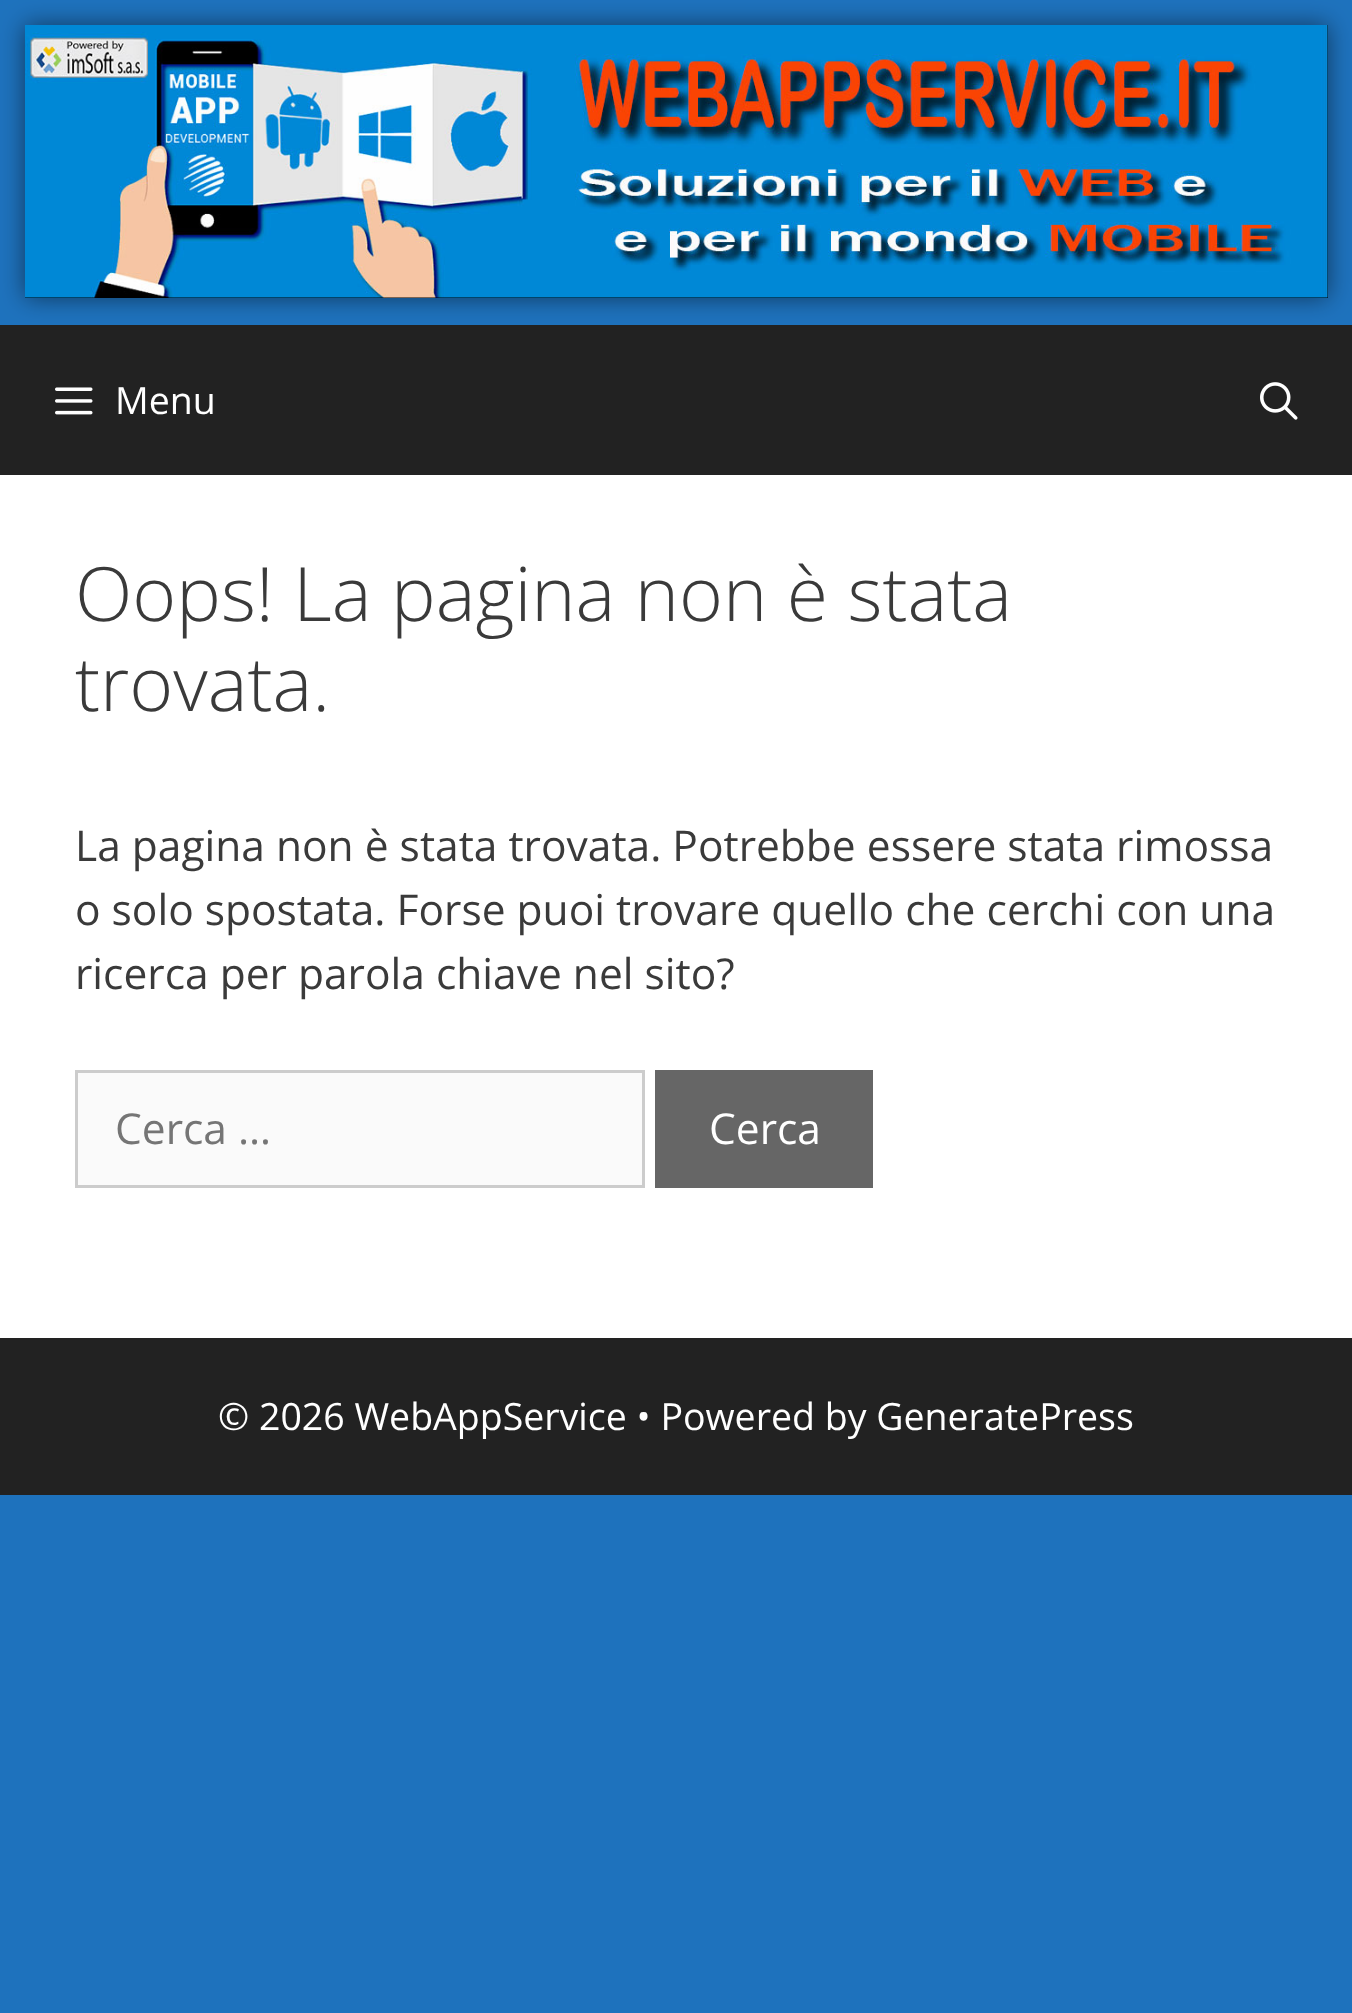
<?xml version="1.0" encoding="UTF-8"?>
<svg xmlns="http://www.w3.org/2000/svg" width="1352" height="2013">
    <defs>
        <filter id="blur1" x="-50%" y="-200%" width="200%" height="500%"><feGaussianBlur stdDeviation="12.5"/></filter>
    </defs>
    <rect width="100%" height="100%" fill="#1E72BD"/>
    <rect x="25" y="25" width="1303" height="273" fill="#000000"/>
    <rect x="0" y="325" width="1352" height="150" fill="#222222"/>
    <rect x="25" y="25" width="1303" height="273" fill="#000000" fill-opacity="0.5" filter="url(#blur1)"/>
    <image x="25" y="25" width="1303" height="273" href="img_01.png"/>
    <image x="55" y="387" width="38" height="28" href="img_02.png"/>
    <text x="115" y="414" font-family="Open Sans" font-size="37.5" fill="#FFFFFF">Menu</text>
    <image x="1260" y="382" width="38" height="38" href="img_03.png"/>
    <rect x="0" y="475" width="1352" height="863" fill="#FFFFFF"/>
    <text font-family="Open Sans" font-size="75" font-weight="300" fill="#3A3A3A">
        <tspan x="75" y="621">Oops! La pagina non è stata</tspan>
        <tspan x="75" y="711">trovata.</tspan>
    </text>
    <text font-family="Open Sans" font-size="42.5" fill="#3A3A3A">
        <tspan x="75" y="861">La pagina non è stata trovata. Potrebbe essere stata rimossa</tspan>
        <tspan x="75" y="925">o solo spostata. Forse puoi trovare quello che cerchi con una</tspan>
        <tspan x="75" y="989">ricerca per parola chiave nel sito?</tspan>
    </text>
    <rect x="76.5" y="1071.5" width="567" height="115" fill="#FAFAFA" stroke="#CCCCCC" stroke-width="3"/>
    <text x="115" y="1144" font-family="Open Sans" font-size="42.5" fill="#757575">Cerca …</text>
    <rect x="655" y="1070" width="218" height="118" fill="#666666"/>
    <text x="709" y="1144" font-family="Open Sans" font-size="42.5" fill="#FFFFFF">Cerca</text>
    <rect x="0" y="1338" width="1352" height="157" fill="#222222"/>
    <text x="218" y="1430" font-family="Open Sans" font-size="37.5" fill="#FFFFFF">© 2026 WebAppService • Powered by GeneratePress</text>
</svg>
